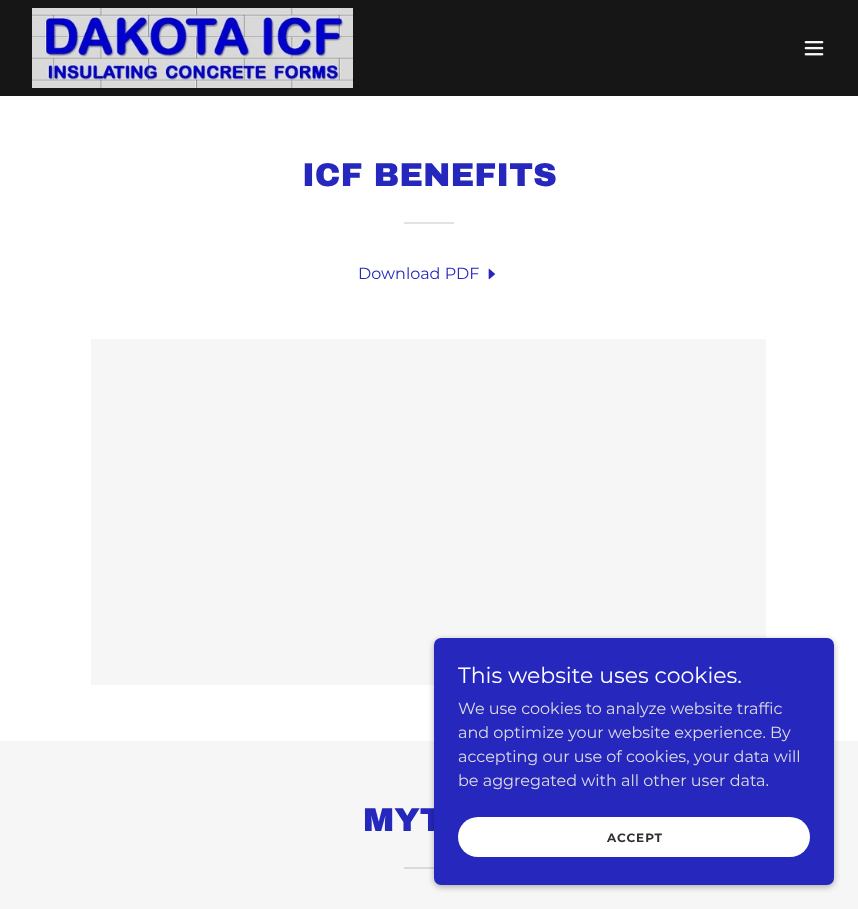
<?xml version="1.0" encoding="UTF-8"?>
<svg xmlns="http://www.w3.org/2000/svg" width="858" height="909">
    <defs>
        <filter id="blur1" x="-50%" y="-200%" width="200%" height="500%"><feGaussianBlur stdDeviation="3"/></filter>
    </defs>
    <rect width="100%" height="100%" fill="#161616"/>
    <image x="32" y="8" width="321" height="80" href="img_01.png"/>
    <image x="804" y="41" width="20" height="15" href="img_02.png"/>
    <rect x="0" y="96" width="858" height="645" fill="#FFFFFF"/>
    <text x="302" y="186" font-family="Archivo Black" font-size="33" font-weight="900" fill="#2627BC">ICF BENEFITS</text>
    <rect x="404" y="222" width="50" height="2" fill="#E2E2E2"/>
    <text x="358" y="279" font-family="Montserrat" font-size="16" fill="#2627BC">Download PDF</text>
    <image x="488" y="268" width="8" height="12" href="img_03.png"/>
    <rect x="91" y="339" width="675" height="346" fill="#F6F6F6"/>
    <rect x="0" y="741" width="858" height="168" fill="#F6F6F6"/>
    <text x="363" y="831" font-family="Archivo Black" font-size="33" font-weight="900" fill="#2627BC">MYT</text>
    <rect x="404" y="867" width="30" height="2" fill="#DADADA"/>
    <rect x="434" y="640" width="400" height="247" rx="7" fill="#000000" fill-opacity="0.3" filter="url(#blur1)"/>
    <rect x="434" y="638" width="400" height="247" rx="7" fill="#2627BC"/>
    <text x="458" y="683" font-family="Montserrat" font-size="22" fill="#FFFFFF">This website uses cookies.</text>
    <text font-family="Montserrat" font-size="16" fill="#DDDDE2">
        <tspan x="458" y="714">We use cookies to analyze website traffic</tspan>
        <tspan x="458" y="738">and optimize your website experience. By</tspan>
        <tspan x="458" y="762">accepting our use of cookies, your data will</tspan>
        <tspan x="458" y="786">be aggregated with all other user data.</tspan>
    </text>
    <rect x="458" y="817" width="352" height="40" rx="20" fill="#FFFFFF"/>
    <text x="607" y="842" font-family="Montserrat" font-size="12" font-weight="700" letter-spacing="1" fill="#303030">ACCEPT</text>
</svg>
